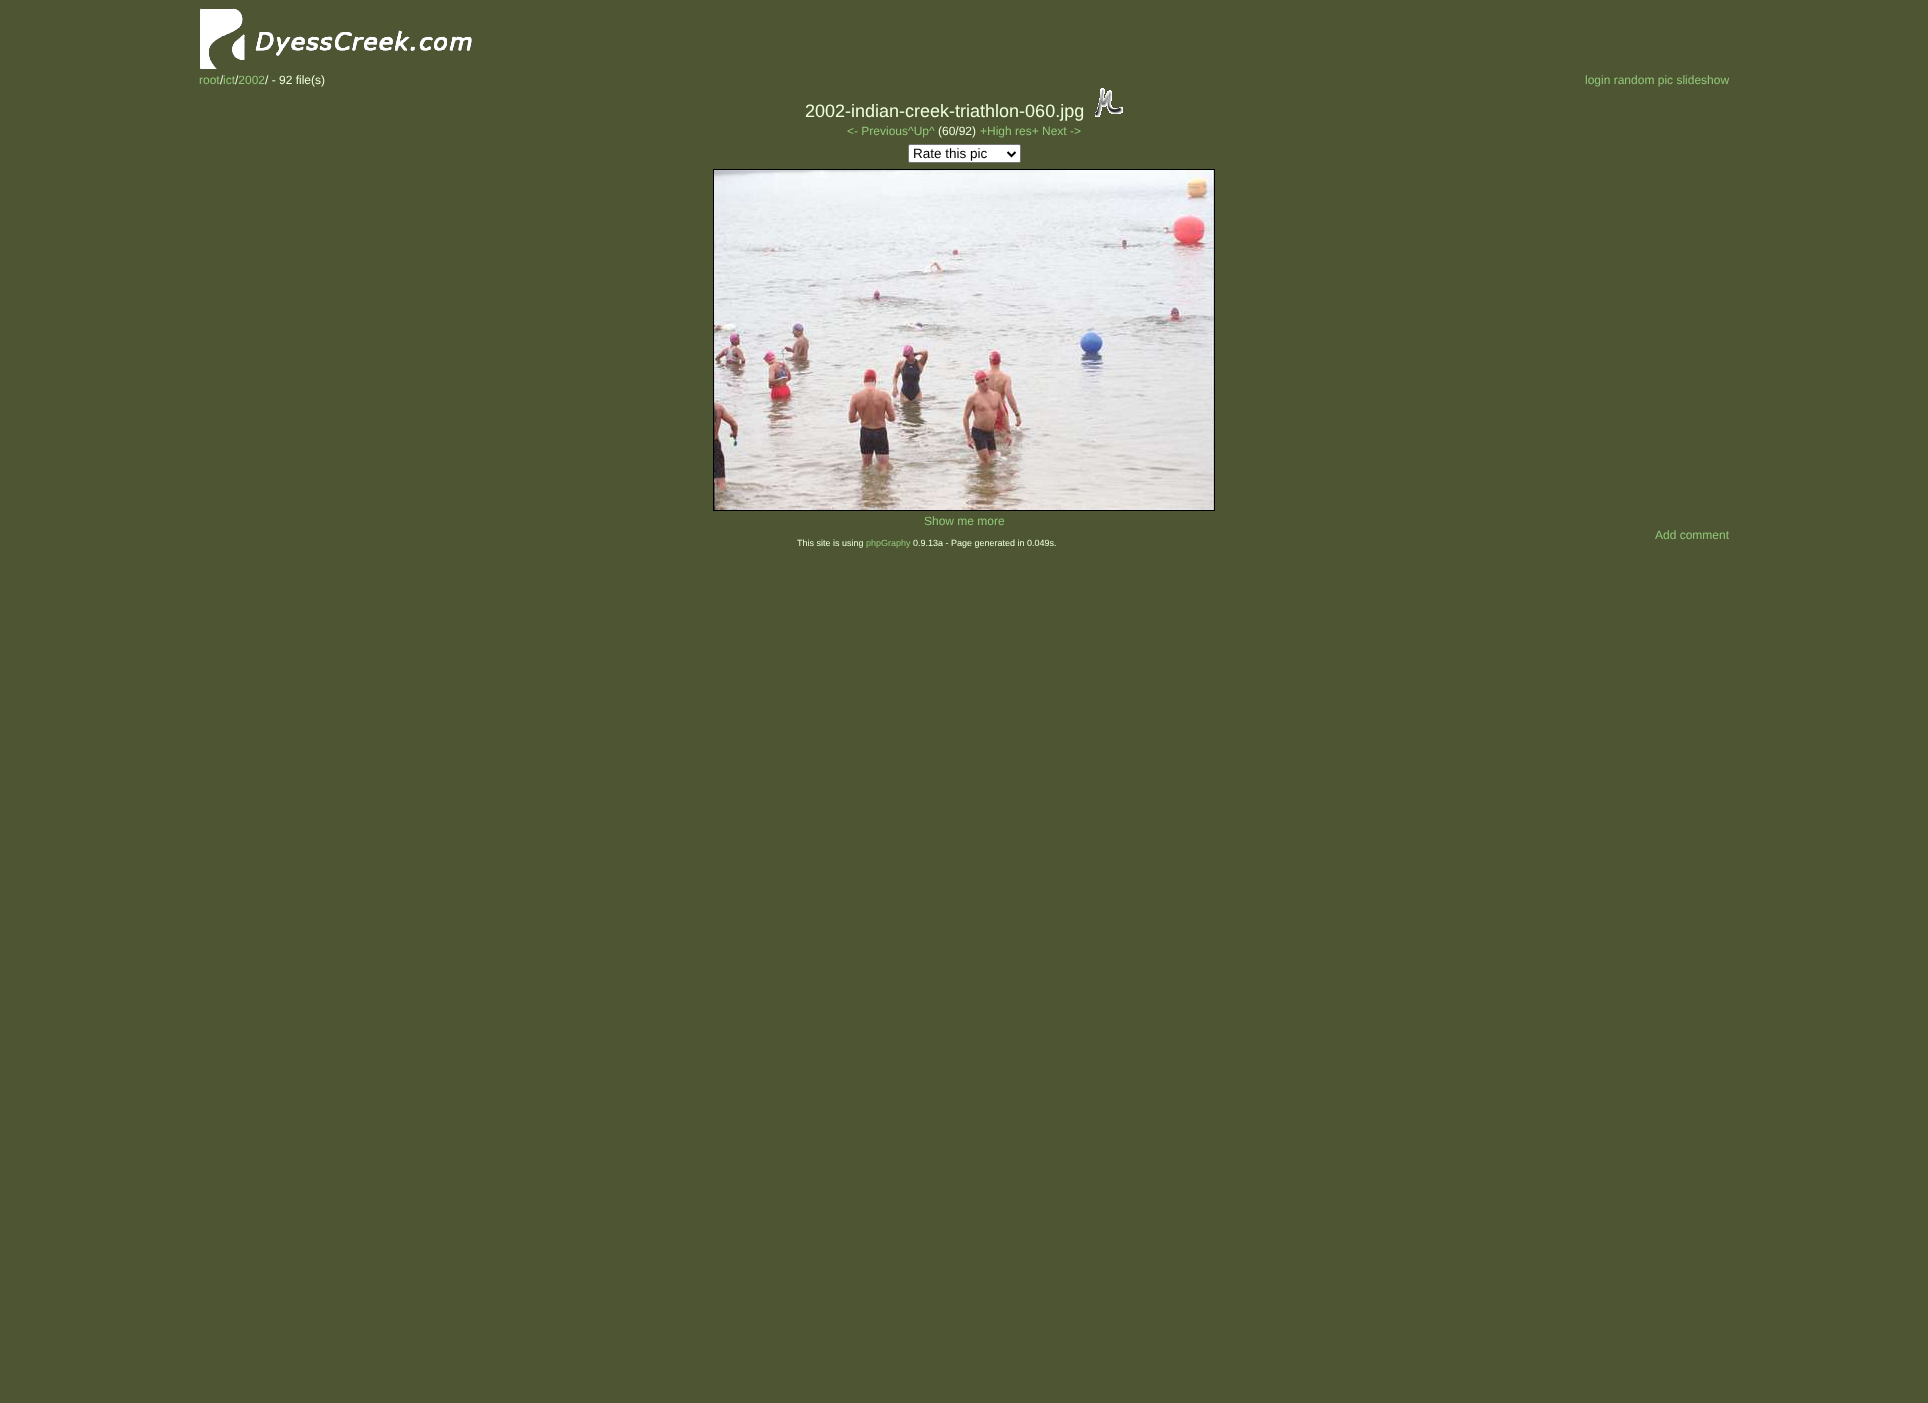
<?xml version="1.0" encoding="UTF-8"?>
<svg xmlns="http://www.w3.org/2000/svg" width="1928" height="1403">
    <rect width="100%" height="100%" fill="#4D5533"/>
    <image x="200" y="8" width="272" height="61" href="img_01.png"/>
    <text x="199" y="84" font-family="Liberation Sans" font-size="12" fill="#93C879">root ict 2002</text>
    <text x="220" y="84" font-family="Liberation Sans" font-size="12" fill="#EDFFDD">/</text>
    <text x="235" y="84" font-family="Liberation Sans" font-size="12" fill="#EDFFDD">/</text>
    <text x="265" y="84" font-family="Liberation Sans" font-size="12" fill="#EDFFDD">/ - 92 file(s)</text>
    <text x="1585" y="84" font-family="Liberation Sans" font-size="12" fill="#93C879">login random pic slideshow</text>
    <text x="805" y="117" font-family="Liberation Sans" font-size="18" fill="#EDFFDD">2002-indian-creek-triathlon-060.jpg</text>
    <image x="1095" y="88" width="28" height="29" href="img_02.png"/>
    <text x="847" y="135" font-family="Liberation Sans" font-size="12" fill="#93C879">&lt;- Previous^Up^</text>
    <text x="938" y="135" font-family="Liberation Sans" font-size="12" fill="#EDFFDD">(60/92)</text>
    <text x="980" y="135" font-family="Liberation Sans" font-size="12" fill="#93C879">+High res+ Next -&gt;</text>
    <rect x="908.5" y="144.5" width="112" height="18" rx="1.5" fill="#FFFFFF" stroke="#767676"/>
    <path d="M 1007.5 152 L 1011.5 156 L 1015.5 152" fill="none" stroke="#000000" stroke-width="2"/>
    <text x="913" y="158" font-family="Liberation Sans" font-size="13.5" fill="#000000">Rate this pic</text>
    <rect x="713.5" y="169.5" width="501" height="341" fill="none" stroke="#000000"/>
    <image x="714" y="170" width="500" height="340" href="img_03.png"/>
    <text x="924" y="525" font-family="Liberation Sans" font-size="12" fill="#93C879">Show me more</text>
    <text x="1655" y="539" font-family="Liberation Sans" font-size="12" fill="#93C879">Add comment</text>
    <text x="797" y="546" font-family="Liberation Sans" font-size="9" fill="#EDFFDD">This site is using</text>
    <text x="866" y="546" font-family="Liberation Sans" font-size="9" fill="#93C879">phpGraphy</text>
    <text x="913" y="546" font-family="Liberation Sans" font-size="9" fill="#EDFFDD">0.9.13a - Page generated in 0.049s.</text>
</svg>
